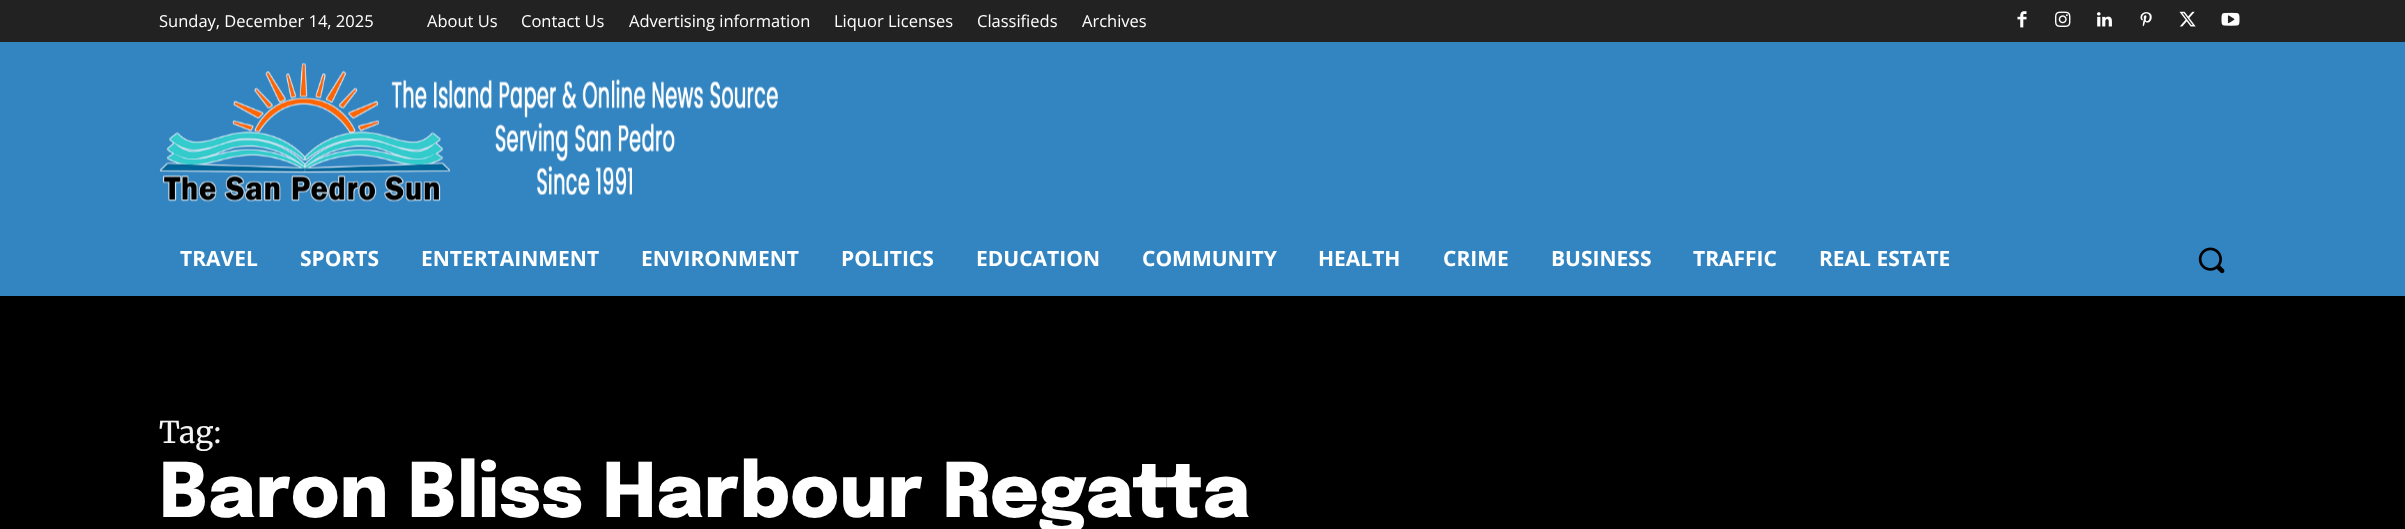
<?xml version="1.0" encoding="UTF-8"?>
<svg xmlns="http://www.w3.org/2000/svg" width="2405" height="529">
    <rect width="100%" height="100%" fill="#000000"/>
    <rect x="0" y="0" width="2405" height="42" fill="#222222"/>
    <text x="159" y="27" font-family="Open Sans" font-size="16.5" fill="#FFFFFF">Sunday, December 14, 2025</text>
    <text x="427" y="27" font-family="Open Sans" font-size="16.5" fill="#FFFFFF">About Us</text>
    <text x="521" y="27" font-family="Open Sans" font-size="16.5" fill="#FFFFFF">Contact Us</text>
    <text x="629" y="27" font-family="Open Sans" font-size="16.5" fill="#FFFFFF">Advertising information</text>
    <text x="834" y="27" font-family="Open Sans" font-size="16.5" fill="#FFFFFF">Liquor Licenses</text>
    <text x="977" y="27" font-family="Open Sans" font-size="16.5" fill="#FFFFFF">Classifieds</text>
    <text x="1082" y="27" font-family="Open Sans" font-size="16.5" fill="#FFFFFF">Archives</text>
    <image x="2017" y="11" width="10" height="17" href="img_01.png"/>
    <image x="2055" y="11" width="16" height="16" href="img_02.png"/>
    <image x="2097" y="12" width="15" height="15" href="img_03.png"/>
    <image x="2140" y="12" width="12" height="15" href="img_04.png"/>
    <image x="2179" y="11" width="17" height="16" href="img_05.png"/>
    <image x="2221" y="12" width="19" height="14" href="img_06.png"/>
    <rect x="0" y="42" width="2405" height="254" fill="#3385C1"/>
    <image x="159" y="62" width="619" height="140" href="img_07.png"/>
    <text x="180" y="266" font-family="Open Sans" font-size="21" font-weight="700" fill="#FFFFFF">TRAVEL</text>
    <text x="300" y="266" font-family="Open Sans" font-size="21" font-weight="700" fill="#FFFFFF">SPORTS</text>
    <text x="421" y="266" font-family="Open Sans" font-size="21" font-weight="700" fill="#FFFFFF">ENTERTAINMENT</text>
    <text x="641" y="266" font-family="Open Sans" font-size="21" font-weight="700" fill="#FFFFFF">ENVIRONMENT</text>
    <text x="841" y="266" font-family="Open Sans" font-size="21" font-weight="700" fill="#FFFFFF">POLITICS</text>
    <text x="976" y="266" font-family="Open Sans" font-size="21" font-weight="700" fill="#FFFFFF">EDUCATION</text>
    <text x="1142" y="266" font-family="Open Sans" font-size="21" font-weight="700" fill="#FFFFFF">COMMUNITY</text>
    <text x="1318" y="266" font-family="Open Sans" font-size="21" font-weight="700" fill="#FFFFFF">HEALTH</text>
    <text x="1443" y="266" font-family="Open Sans" font-size="21" font-weight="700" fill="#FFFFFF">CRIME</text>
    <text x="1551" y="266" font-family="Open Sans" font-size="21" font-weight="700" fill="#FFFFFF">BUSINESS</text>
    <text x="1693" y="266" font-family="Open Sans" font-size="21" font-weight="700" fill="#FFFFFF">TRAFFIC</text>
    <text x="1819" y="266" font-family="Open Sans" font-size="21" font-weight="700" fill="#FFFFFF">REAL ESTATE</text>
    <image x="2198" y="247" width="27" height="27" href="img_08.png"/>
    <text x="159" y="443" font-family="Merriweather" font-size="30" fill="#F4F4F4">Tag:</text>
    <text x="159" y="517" font-family="Epilogue" font-size="75" font-weight="800" fill="#FFFFFF">Baron Bliss Harbour Regatta</text>
</svg>
